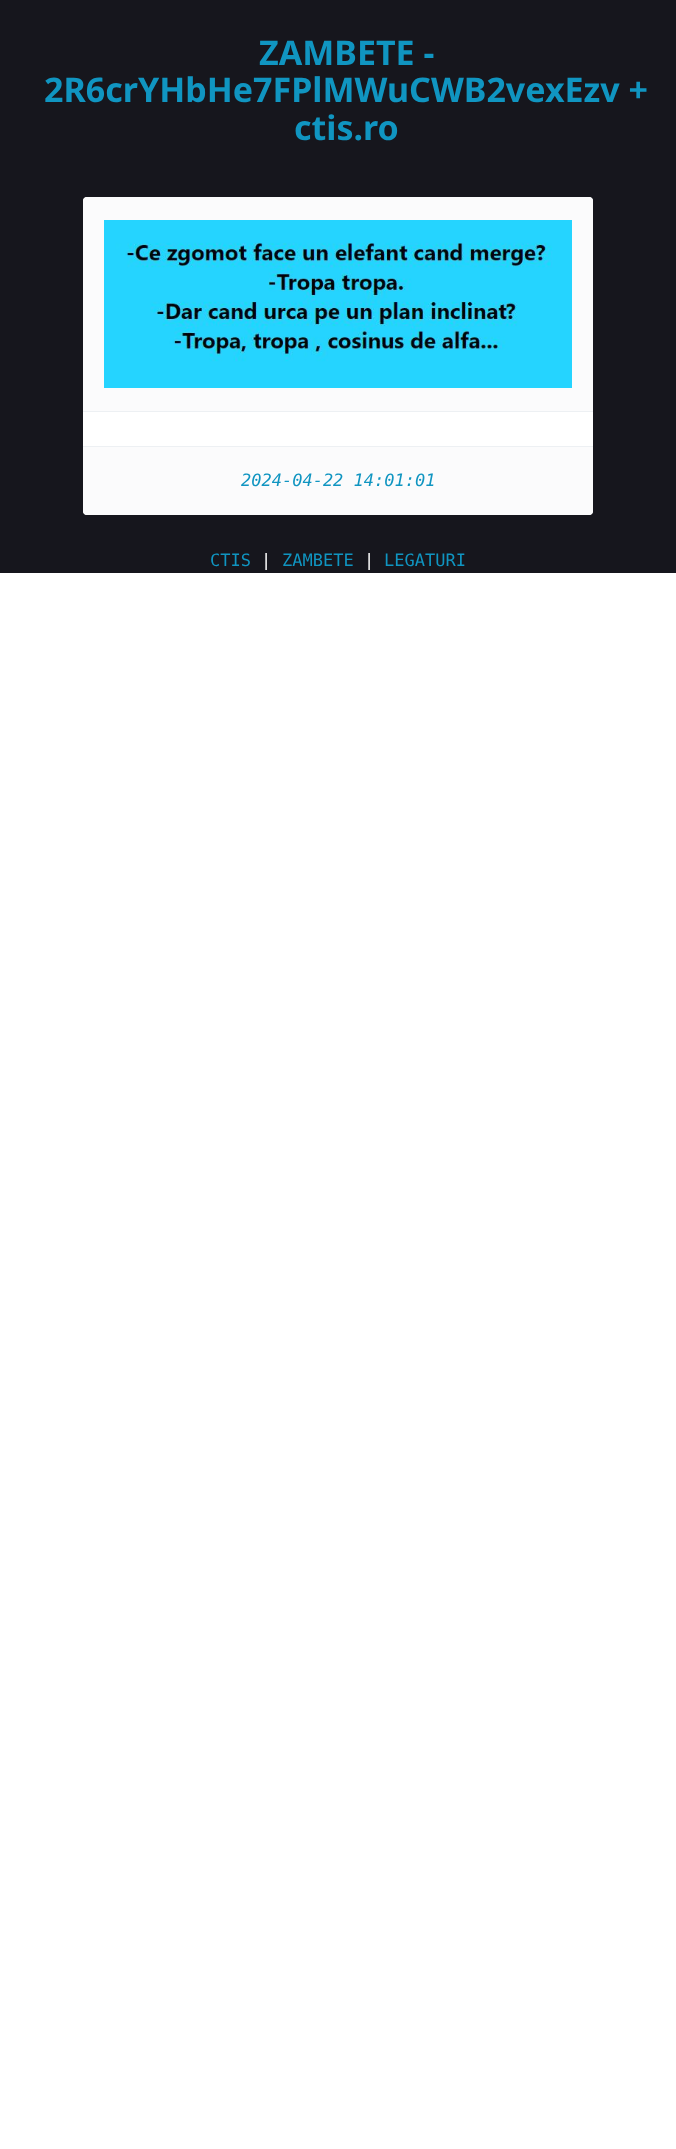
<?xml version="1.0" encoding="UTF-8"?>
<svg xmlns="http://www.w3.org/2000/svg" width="676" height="2149">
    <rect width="100%" height="100%" fill="#FFFFFF"/>
    <rect x="0" y="0" width="676" height="573" fill="#16161D"/>
    <text x="259" y="65" font-family="Noto Sans" font-size="34" font-weight="700" fill="#1095C1">ZAMBETE -</text>
    <text x="44" y="102" font-family="Noto Sans" font-size="34" font-weight="700" fill="#1095C1">2R6crYHbHe7FPlMWuCWB2vexEzv +</text>
    <text x="294" y="140" font-family="Noto Sans" font-size="34" font-weight="700" fill="#1095C1">ctis.ro</text>
    <rect x="83" y="197" width="510" height="318" rx="4" fill="#FFFFFF"/>
    <path d="M 87 197 H 589 C 591 197 593 199 593 201 V 412 H 83 V 201 C 83 199 85 197 87 197 Z" fill="#FBFBFC"/>
    <rect x="83" y="411" width="510" height="1" fill="#EDF0F3"/>
    <image x="104" y="220" width="468" height="168" href="img_01.png"/>
    <path d="M 83 446 H 593 V 511 C 593 513 591 515 589 515 H 87 C 85 515 83 513 83 511 Z" fill="#FBFBFC"/>
    <rect x="83" y="446" width="510" height="1" fill="#EDF0F3"/>
    <text x="241" y="486" font-family="DejaVu Sans Mono" font-size="17" font-style="italic" fill="#1095C1">2024-04-22 14:01:01</text>
    <text x="210" y="566" font-family="DejaVu Sans Mono" font-size="17" fill="#1095C1">CTIS</text>
    <text x="261" y="566" font-family="DejaVu Sans Mono" font-size="17" fill="#FFFFFF">|</text>
    <text x="282" y="566" font-family="DejaVu Sans Mono" font-size="17" fill="#1095C1">ZAMBETE</text>
    <text x="364" y="566" font-family="DejaVu Sans Mono" font-size="17" fill="#FFFFFF">|</text>
    <text x="384" y="566" font-family="DejaVu Sans Mono" font-size="17" fill="#1095C1">LEGATURI</text>
</svg>
